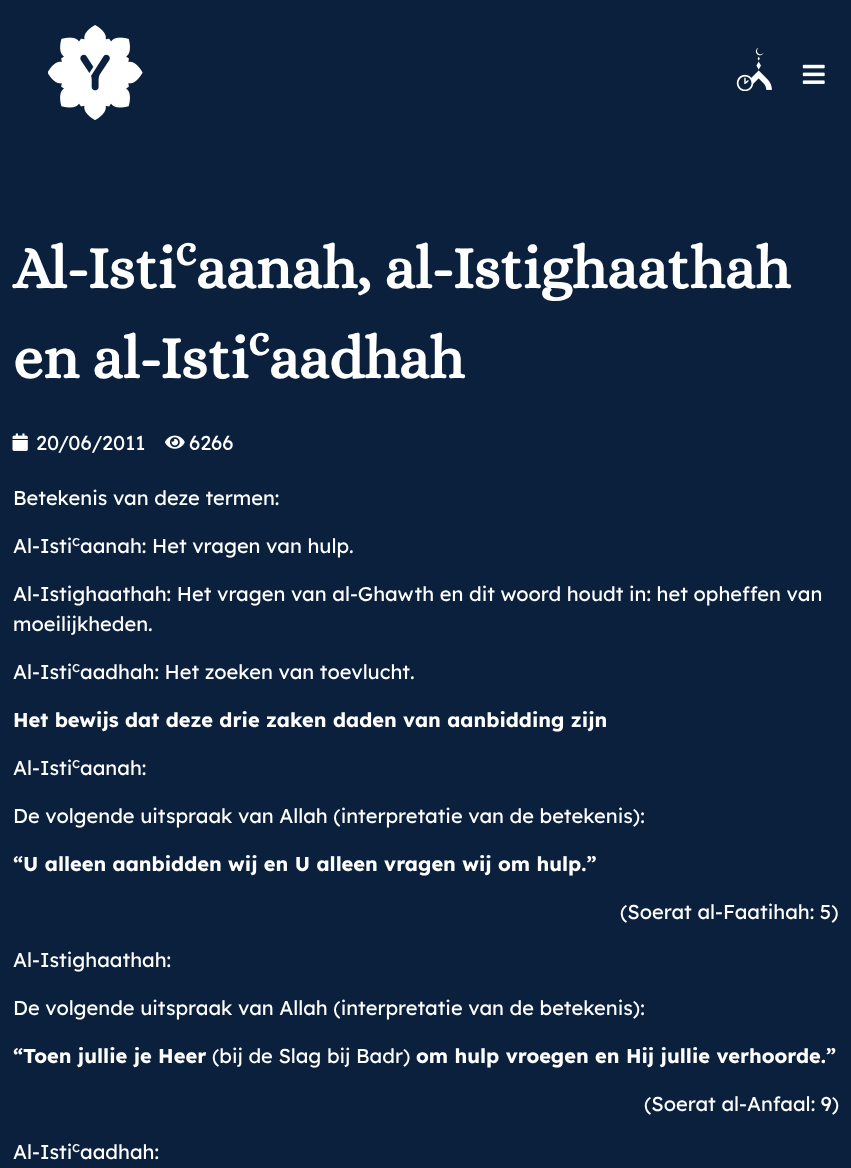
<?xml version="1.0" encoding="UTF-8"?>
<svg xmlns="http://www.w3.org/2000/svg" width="851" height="1168">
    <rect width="100%" height="100%" fill="#0B203D"/>
    <image x="48" y="25" width="95" height="95" href="img_01.png"/>
    <image x="736" y="48" width="36" height="43" href="img_02.png"/>
    <image x="802" y="64" width="23" height="20" href="img_03.png"/>
    <text x="13" y="288" font-family="Alice" font-size="60" font-weight="700" fill="#FFFFFF">Al-Isti</text>
    <text x="175" y="265" font-family="Alice" font-size="45" font-weight="700" fill="#FFFFFF">c</text>
    <text x="196" y="288" font-family="Alice" font-size="60" font-weight="700" fill="#FFFFFF">aanah, al-Istighaathah</text>
    <text x="13" y="378" font-family="Alice" font-size="60" font-weight="700" fill="#FFFFFF">en al-Isti</text>
    <text x="248" y="355" font-family="Alice" font-size="45" font-weight="700" fill="#FFFFFF">c</text>
    <text x="269" y="378" font-family="Alice" font-size="60" font-weight="700" fill="#FFFFFF">aadhah</text>
    <image x="12" y="433" width="16" height="18" href="img_04.png"/>
    <text x="36" y="450" font-family="Lexend Deca" font-size="20" fill="#FFFFFF">20/06/2011</text>
    <image x="165" y="435" width="20" height="14" href="img_05.png"/>
    <text x="189" y="450" font-family="Lexend Deca" font-size="20" fill="#FFFFFF">6266</text>
    <text x="13" y="505" font-family="Lexend Deca" font-size="20" fill="#FFFFFF">Betekenis van deze termen:</text>
    <text x="13" y="553" font-family="Lexend Deca" font-size="20" fill="#FFFFFF">Al-Isti</text>
    <text x="72" y="546" font-family="Lexend Deca" font-size="15" fill="#FFFFFF">c</text>
    <text x="80" y="553" font-family="Lexend Deca" font-size="20" fill="#FFFFFF">aanah: Het vragen van hulp.</text>
    <text font-family="Lexend Deca" font-size="20" fill="#FFFFFF">
        <tspan x="13" y="601">Al-Istighaathah: Het vragen van al-Ghawth en dit woord houdt in: het opheffen van</tspan>
        <tspan x="13" y="631">moeilijkheden.</tspan>
    </text>
    <text x="13" y="679" font-family="Lexend Deca" font-size="20" fill="#FFFFFF">Al-Isti</text>
    <text x="72" y="672" font-family="Lexend Deca" font-size="15" fill="#FFFFFF">c</text>
    <text x="80" y="679" font-family="Lexend Deca" font-size="20" fill="#FFFFFF">aadhah: Het zoeken van toevlucht.</text>
    <text x="13" y="727" font-family="Lexend Deca" font-size="20" font-weight="700" fill="#FFFFFF">Het bewijs dat deze drie zaken daden van aanbidding zijn</text>
    <text x="13" y="775" font-family="Lexend Deca" font-size="20" fill="#FFFFFF">Al-Isti</text>
    <text x="72" y="768" font-family="Lexend Deca" font-size="15" fill="#FFFFFF">c</text>
    <text x="80" y="775" font-family="Lexend Deca" font-size="20" fill="#FFFFFF">aanah:</text>
    <text x="13" y="823" font-family="Lexend Deca" font-size="20" fill="#FFFFFF">De volgende uitspraak van Allah (interpretatie van de betekenis):</text>
    <text x="13" y="871" font-family="Lexend Deca" font-size="20" font-weight="700" fill="#FFFFFF">“U alleen aanbidden wij en U alleen vragen wij om hulp.”</text>
    <text x="620" y="919" font-family="Lexend Deca" font-size="20" fill="#FFFFFF">(Soerat al-Faatihah: 5)</text>
    <text x="13" y="967" font-family="Lexend Deca" font-size="20" fill="#FFFFFF">Al-Istighaathah:</text>
    <text x="13" y="1015" font-family="Lexend Deca" font-size="20" fill="#FFFFFF">De volgende uitspraak van Allah (interpretatie van de betekenis):</text>
    <text x="13" y="1063" font-family="Lexend Deca" font-size="20" font-weight="700" fill="#FFFFFF">“Toen jullie je Heer</text>
    <text x="212" y="1063" font-family="Lexend Deca" font-size="20" fill="#FFFFFF">(bij de Slag bij Badr)</text>
    <text x="416" y="1063" font-family="Lexend Deca" font-size="20" font-weight="700" fill="#FFFFFF">om hulp vroegen en Hij jullie verhoorde.”</text>
    <text x="644" y="1111" font-family="Lexend Deca" font-size="20" fill="#FFFFFF">(Soerat al-Anfaal: 9)</text>
    <text x="13" y="1159" font-family="Lexend Deca" font-size="20" fill="#FFFFFF">Al-Isti</text>
    <text x="72" y="1152" font-family="Lexend Deca" font-size="15" fill="#FFFFFF">c</text>
    <text x="80" y="1159" font-family="Lexend Deca" font-size="20" fill="#FFFFFF">aadhah:</text>
</svg>
